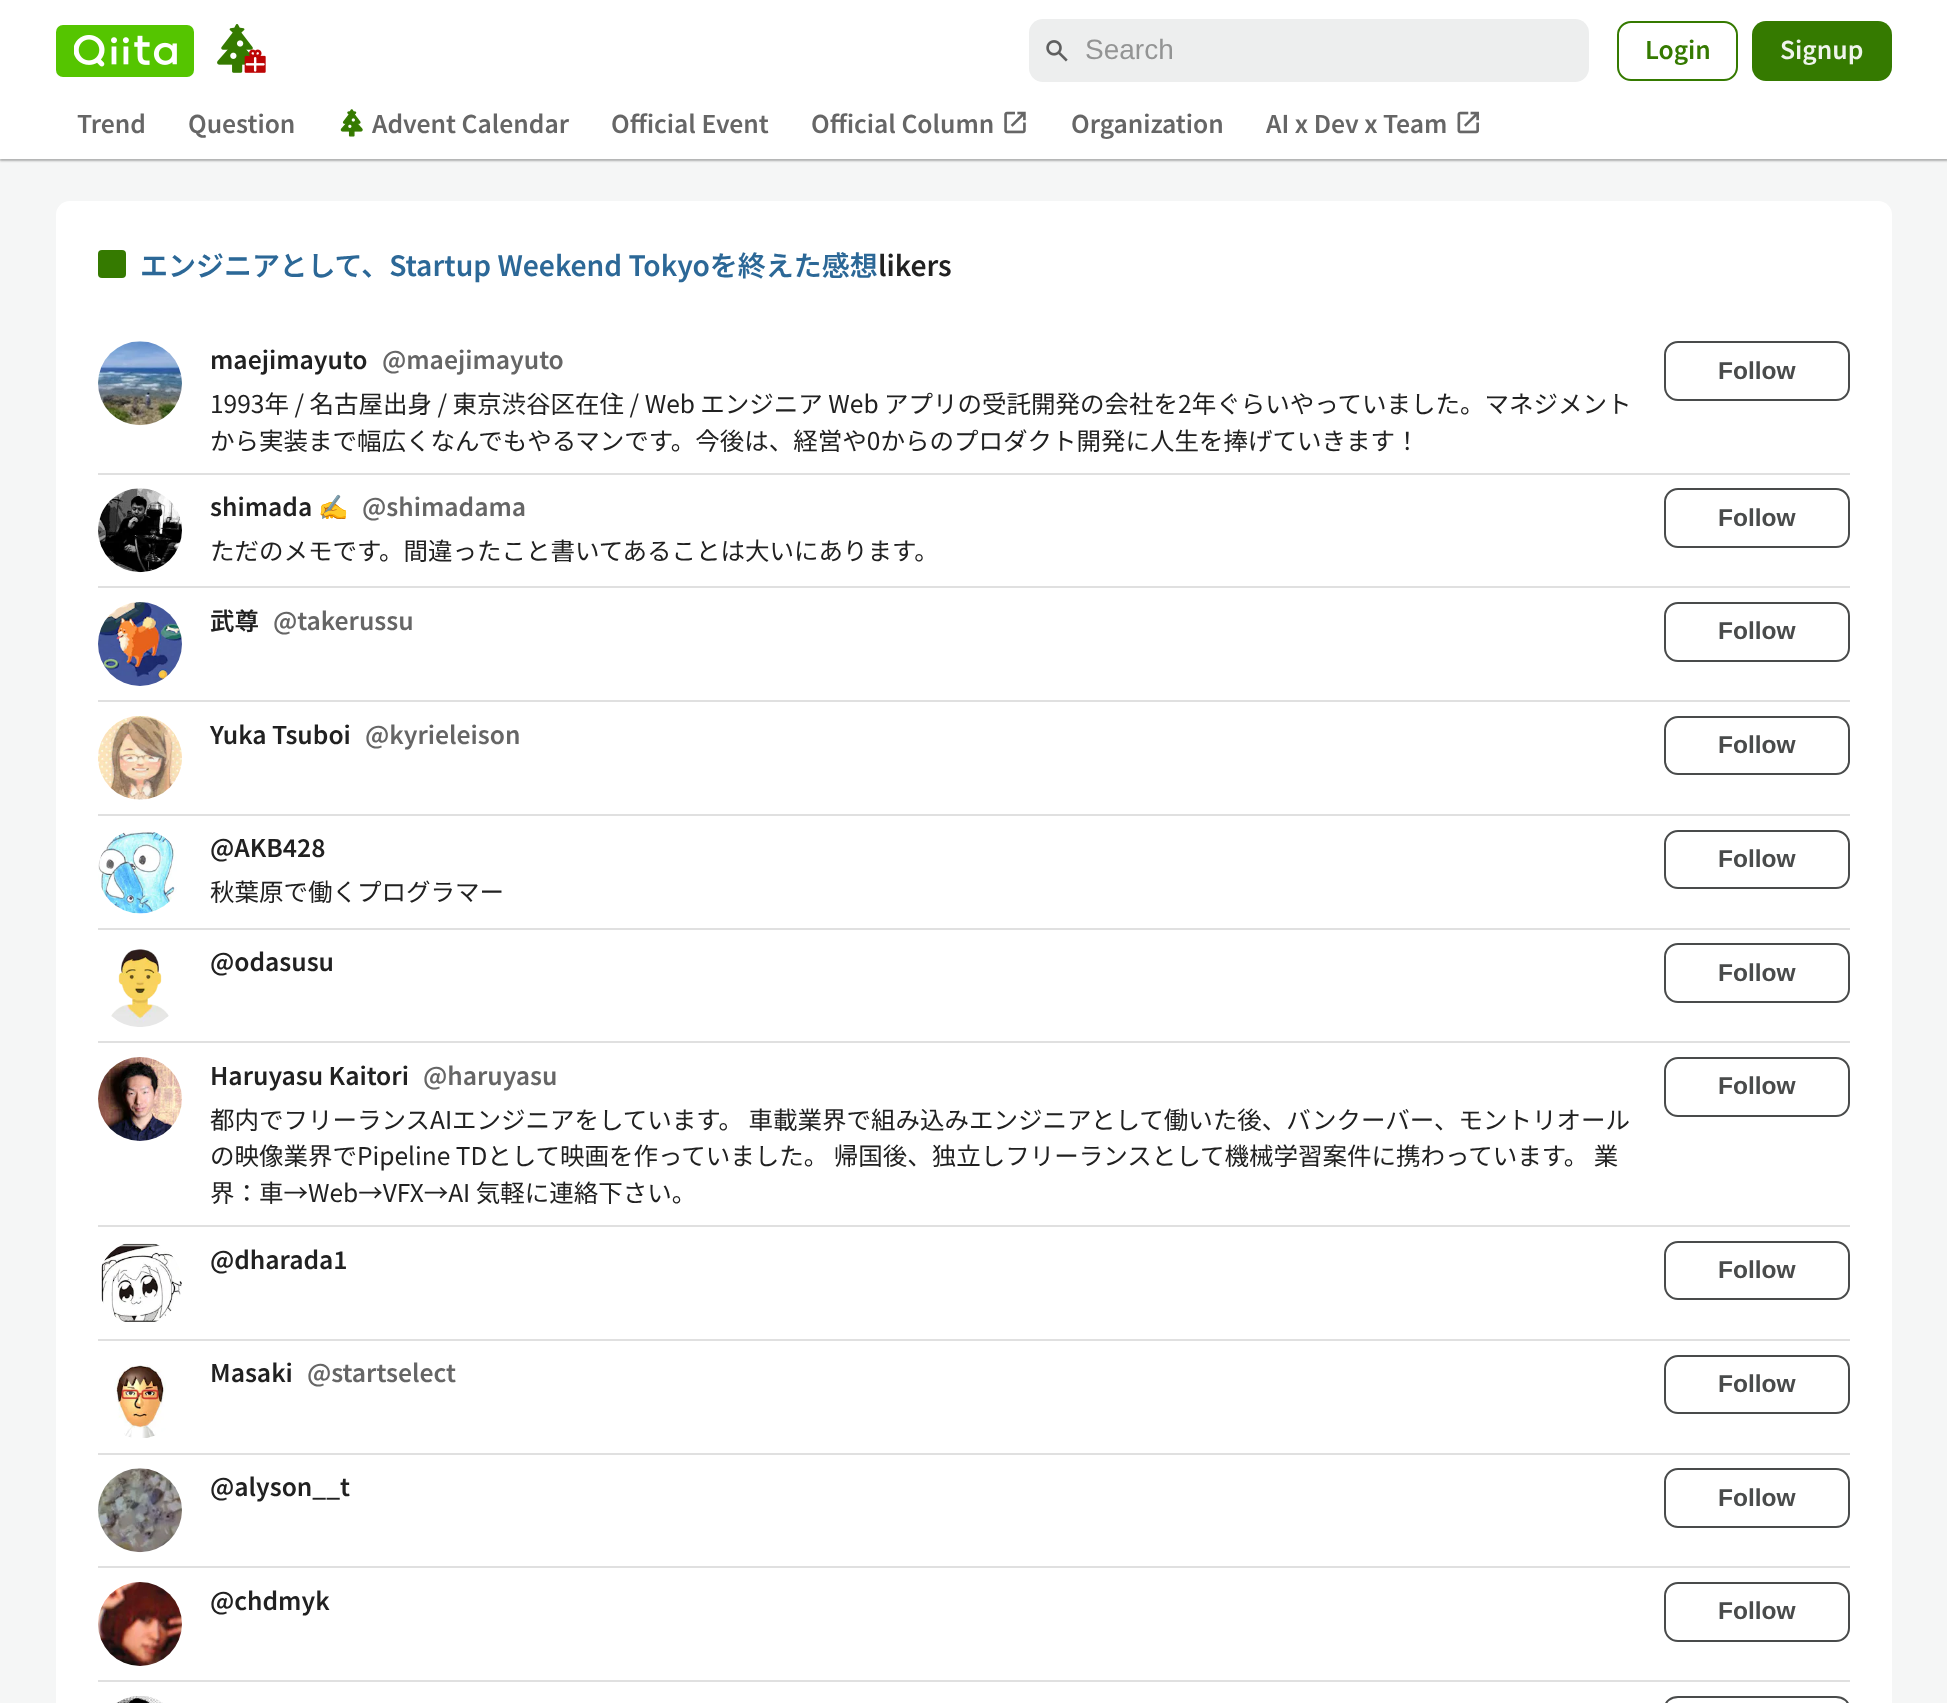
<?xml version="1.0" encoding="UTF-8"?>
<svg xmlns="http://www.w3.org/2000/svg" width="1947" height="1703">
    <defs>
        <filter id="blur1" x="-50%" y="-200%" width="200%" height="500%"><feGaussianBlur stdDeviation="1"/></filter>
    </defs>
    <rect width="100%" height="100%" fill="#F5F6F6"/>
    <rect x="-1" y="-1" width="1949" height="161" fill="none" stroke="#E1E2E2" stroke-width="2"/>
    <rect x="0" y="2" width="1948" height="159" fill="#1E2121" fill-opacity="0.25" filter="url(#blur1)"/>
    <rect x="0" y="0" width="1947" height="159" fill="#FFFFFF"/>
    <rect x="56" y="25" width="138" height="52" rx="7" fill="#55C500"/>
    <image x="74" y="35" width="103" height="32" href="img_01.png"/>
    <image x="217" y="24" width="49" height="49" href="img_02.png"/>
    <rect x="1029" y="19" width="560" height="63" rx="14" fill="#EDEEEE"/>
    <image x="1046" y="40" width="22" height="22" href="img_03.png"/>
    <text x="1085" y="59" font-family="Liberation Sans" font-size="28" fill="#939494">Search</text>
    <rect x="1618" y="22" width="119" height="58" rx="13" fill="none" stroke="#357A00" stroke-width="2"/>
    <text x="1645" y="59" font-family="Noto Sans JP" font-size="24.5" font-weight="600" fill="#357A00">Login</text>
    <rect x="1752" y="21" width="140" height="60" rx="14" fill="#357A00"/>
    <text x="1780" y="59" font-family="Noto Sans JP" font-size="24.5" font-weight="600" fill="#EFF4EB">Signup</text>
    <text x="77" y="133" font-family="Noto Sans JP" font-size="24.5" font-weight="600" fill="#666666">Trend</text>
    <text x="188" y="133" font-family="Noto Sans JP" font-size="24.5" font-weight="600" fill="#666666">Question</text>
    <image x="340" y="109" width="23" height="28" href="img_04.png"/>
    <text x="372" y="133" font-family="Noto Sans JP" font-size="24.5" font-weight="600" fill="#666666">Advent Calendar</text>
    <text x="611" y="133" font-family="Noto Sans JP" font-size="24.5" font-weight="600" fill="#666666">Official Event</text>
    <text x="811" y="133" font-family="Noto Sans JP" font-size="24.5" font-weight="600" fill="#666666">Official Column</text>
    <image x="1004" y="111" width="22" height="23" href="img_05.png"/>
    <text x="1071" y="133" font-family="Noto Sans JP" font-size="24.5" font-weight="600" fill="#666666">Organization</text>
    <text x="1266" y="133" font-family="Noto Sans JP" font-size="24.5" font-weight="600" fill="#666666">AI x Dev x Team</text>
    <image x="1457" y="111" width="22" height="23" href="img_06.png"/>
    <rect x="56" y="201" width="1836" height="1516" rx="14" fill="#FFFFFF"/>
    <rect x="98" y="250" width="28" height="28" rx="4" fill="#357A00"/>
    <text x="140" y="276" font-family="Noto Sans JP" font-size="28" font-weight="600" fill="#2C6897">エンジニアとして、Startup Weekend Tokyoを終えた感想</text>
    <text x="878" y="276" font-family="Noto Sans JP" font-size="28" font-weight="600" fill="#212121">likers</text>
    <image x="98" y="341" width="84" height="85" href="img_07.png"/>
    <text x="210" y="369" font-family="Noto Sans JP" font-size="24.5" font-weight="600" fill="#212121">maejimayuto</text>
    <text x="382" y="369" font-family="Noto Sans JP" font-size="24.5" font-weight="600" fill="#666666">@maejimayuto</text>
    <text font-family="Noto Sans JP" font-size="24.5" fill="#212121">
        <tspan x="210" y="413">1993年 / 名古屋出身 / 東京渋谷区在住 / Web エンジニア Web アプリの受託開発の会社を2年ぐらいやっていました。マネジメント</tspan>
        <tspan x="210" y="450">から実装まで幅広くなんでもやるマンです。今後は、経営や0からのプロダクト開発に人生を捧げていきます！</tspan>
    </text>
    <rect x="1665" y="342" width="184" height="58" rx="13" fill="none" stroke="#494B4B" stroke-width="2"/>
    <text x="1718" y="379" font-family="Liberation Sans" font-size="24.5" font-weight="700" fill="#494B4B">Follow</text>
    <rect x="98" y="473" width="1752" height="2" fill="#E0E0E0"/>
    <image x="98" y="488" width="84" height="85" href="img_08.png"/>
    <text x="210" y="516" font-family="Noto Sans JP" font-size="24.5" font-weight="600" fill="#212121">shimada</text>
    <text x="318" y="516" font-family="Noto Color Emoji" font-size="24.5" font-weight="700" fill="#212121">✍</text>
    <text x="362" y="516" font-family="Noto Sans JP" font-size="24.5" font-weight="600" fill="#666666">@shimadama</text>
    <text x="210" y="560" font-family="Noto Sans JP" font-size="24.5" fill="#212121">ただのメモです。間違ったこと書いてあることは大いにあります。</text>
    <rect x="1665" y="489" width="184" height="58" rx="13" fill="none" stroke="#494B4B" stroke-width="2"/>
    <text x="1718" y="526" font-family="Liberation Sans" font-size="24.5" font-weight="700" fill="#494B4B">Follow</text>
    <rect x="98" y="586" width="1752" height="2" fill="#E0E0E0"/>
    <image x="98" y="602" width="84" height="84" href="img_09.png"/>
    <text x="210" y="630" font-family="Noto Sans JP" font-size="24.5" font-weight="600" fill="#212121">武尊</text>
    <text x="273" y="630" font-family="Noto Sans JP" font-size="24.5" font-weight="600" fill="#666666">@takerussu</text>
    <rect x="1665" y="603" width="184" height="58" rx="13" fill="none" stroke="#494B4B" stroke-width="2"/>
    <text x="1718" y="639" font-family="Liberation Sans" font-size="24.5" font-weight="700" fill="#494B4B">Follow</text>
    <rect x="98" y="700" width="1752" height="2" fill="#E0E0E0"/>
    <image x="98" y="716" width="84" height="84" href="img_10.png"/>
    <text x="210" y="744" font-family="Noto Sans JP" font-size="24.5" font-weight="600" fill="#212121">Yuka Tsuboi</text>
    <text x="365" y="744" font-family="Noto Sans JP" font-size="24.5" font-weight="600" fill="#666666">@kyrieleison</text>
    <rect x="1665" y="717" width="184" height="57" rx="13" fill="none" stroke="#494B4B" stroke-width="2"/>
    <text x="1718" y="753" font-family="Liberation Sans" font-size="24.5" font-weight="700" fill="#494B4B">Follow</text>
    <rect x="98" y="814" width="1752" height="2" fill="#E0E0E0"/>
    <image x="98" y="830" width="79" height="84" href="img_11.png"/>
    <text x="210" y="857" font-family="Noto Sans JP" font-size="24.5" font-weight="600" fill="#212121">@AKB428</text>
    <text x="210" y="901" font-family="Noto Sans JP" font-size="24.5" fill="#212121">秋葉原で働くプログラマー</text>
    <rect x="1665" y="831" width="184" height="57" rx="13" fill="none" stroke="#494B4B" stroke-width="2"/>
    <text x="1718" y="867" font-family="Liberation Sans" font-size="24.5" font-weight="700" fill="#494B4B">Follow</text>
    <rect x="98" y="928" width="1752" height="2" fill="#E0E0E0"/>
    <image x="111" y="949" width="58" height="78" href="img_12.png"/>
    <text x="210" y="971" font-family="Noto Sans JP" font-size="24.5" font-weight="600" fill="#212121">@odasusu</text>
    <rect x="1665" y="944" width="184" height="58" rx="13" fill="none" stroke="#494B4B" stroke-width="2"/>
    <text x="1718" y="981" font-family="Liberation Sans" font-size="24.5" font-weight="700" fill="#494B4B">Follow</text>
    <rect x="98" y="1041" width="1752" height="2" fill="#E0E0E0"/>
    <image x="98" y="1057" width="84" height="84" href="img_13.png"/>
    <text x="210" y="1085" font-family="Noto Sans JP" font-size="24.5" font-weight="600" fill="#212121">Haruyasu Kaitori</text>
    <text x="423" y="1085" font-family="Noto Sans JP" font-size="24.5" font-weight="600" fill="#666666">@haruyasu</text>
    <text font-family="Noto Sans JP" font-size="24.5" fill="#212121">
        <tspan x="210" y="1129">都内でフリーランスAIエンジニアをしています。 車載業界で組み込みエンジニアとして働いた後、バンクーバー、モントリオール</tspan>
        <tspan x="210" y="1165">の映像業界でPipeline TDとして映画を作っていました。 帰国後、独立しフリーランスとして機械学習案件に携わっています。 業</tspan>
        <tspan x="210" y="1202">界：車→Web→VFX→AI 気軽に連絡下さい。</tspan>
    </text>
    <rect x="1665" y="1058" width="184" height="58" rx="13" fill="none" stroke="#494B4B" stroke-width="2"/>
    <text x="1718" y="1094" font-family="Liberation Sans" font-size="24.5" font-weight="700" fill="#494B4B">Follow</text>
    <rect x="98" y="1225" width="1752" height="2" fill="#E0E0E0"/>
    <image x="101" y="1243" width="81" height="79" href="img_14.png"/>
    <text x="210" y="1269" font-family="Noto Sans JP" font-size="24.5" font-weight="600" fill="#212121">@dharada1</text>
    <rect x="1665" y="1242" width="184" height="57" rx="13" fill="none" stroke="#494B4B" stroke-width="2"/>
    <text x="1718" y="1278" font-family="Liberation Sans" font-size="24.5" font-weight="700" fill="#494B4B">Follow</text>
    <rect x="98" y="1339" width="1752" height="2" fill="#E0E0E0"/>
    <image x="114" y="1365" width="52" height="73" href="img_15.png"/>
    <text x="210" y="1382" font-family="Noto Sans JP" font-size="24.5" font-weight="600" fill="#212121">Masaki</text>
    <text x="307" y="1382" font-family="Noto Sans JP" font-size="24.5" font-weight="600" fill="#666666">@startselect</text>
    <rect x="1665" y="1356" width="184" height="57" rx="13" fill="none" stroke="#494B4B" stroke-width="2"/>
    <text x="1718" y="1392" font-family="Liberation Sans" font-size="24.5" font-weight="700" fill="#494B4B">Follow</text>
    <rect x="98" y="1453" width="1752" height="2" fill="#E0E0E0"/>
    <image x="98" y="1468" width="84" height="85" href="img_16.png"/>
    <text x="210" y="1496" font-family="Noto Sans JP" font-size="24.5" font-weight="600" fill="#212121">@alyson__t</text>
    <rect x="1665" y="1469" width="184" height="58" rx="13" fill="none" stroke="#494B4B" stroke-width="2"/>
    <text x="1718" y="1506" font-family="Liberation Sans" font-size="24.5" font-weight="700" fill="#494B4B">Follow</text>
    <rect x="98" y="1566" width="1752" height="2" fill="#E0E0E0"/>
    <image x="98" y="1582" width="84" height="84" href="img_17.png"/>
    <text x="210" y="1610" font-family="Noto Sans JP" font-size="24.5" font-weight="600" fill="#212121">@chdmyk</text>
    <rect x="1665" y="1583" width="184" height="58" rx="13" fill="none" stroke="#494B4B" stroke-width="2"/>
    <text x="1718" y="1619" font-family="Liberation Sans" font-size="24.5" font-weight="700" fill="#494B4B">Follow</text>
    <rect x="98" y="1680" width="1752" height="2" fill="#E0E0E0"/>
    <image x="116" y="1696" width="47" height="7" href="img_18.png"/>
    <rect x="1665" y="1697" width="184" height="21" rx="13" fill="none" stroke="#494B4B" stroke-width="2"/>
</svg>
